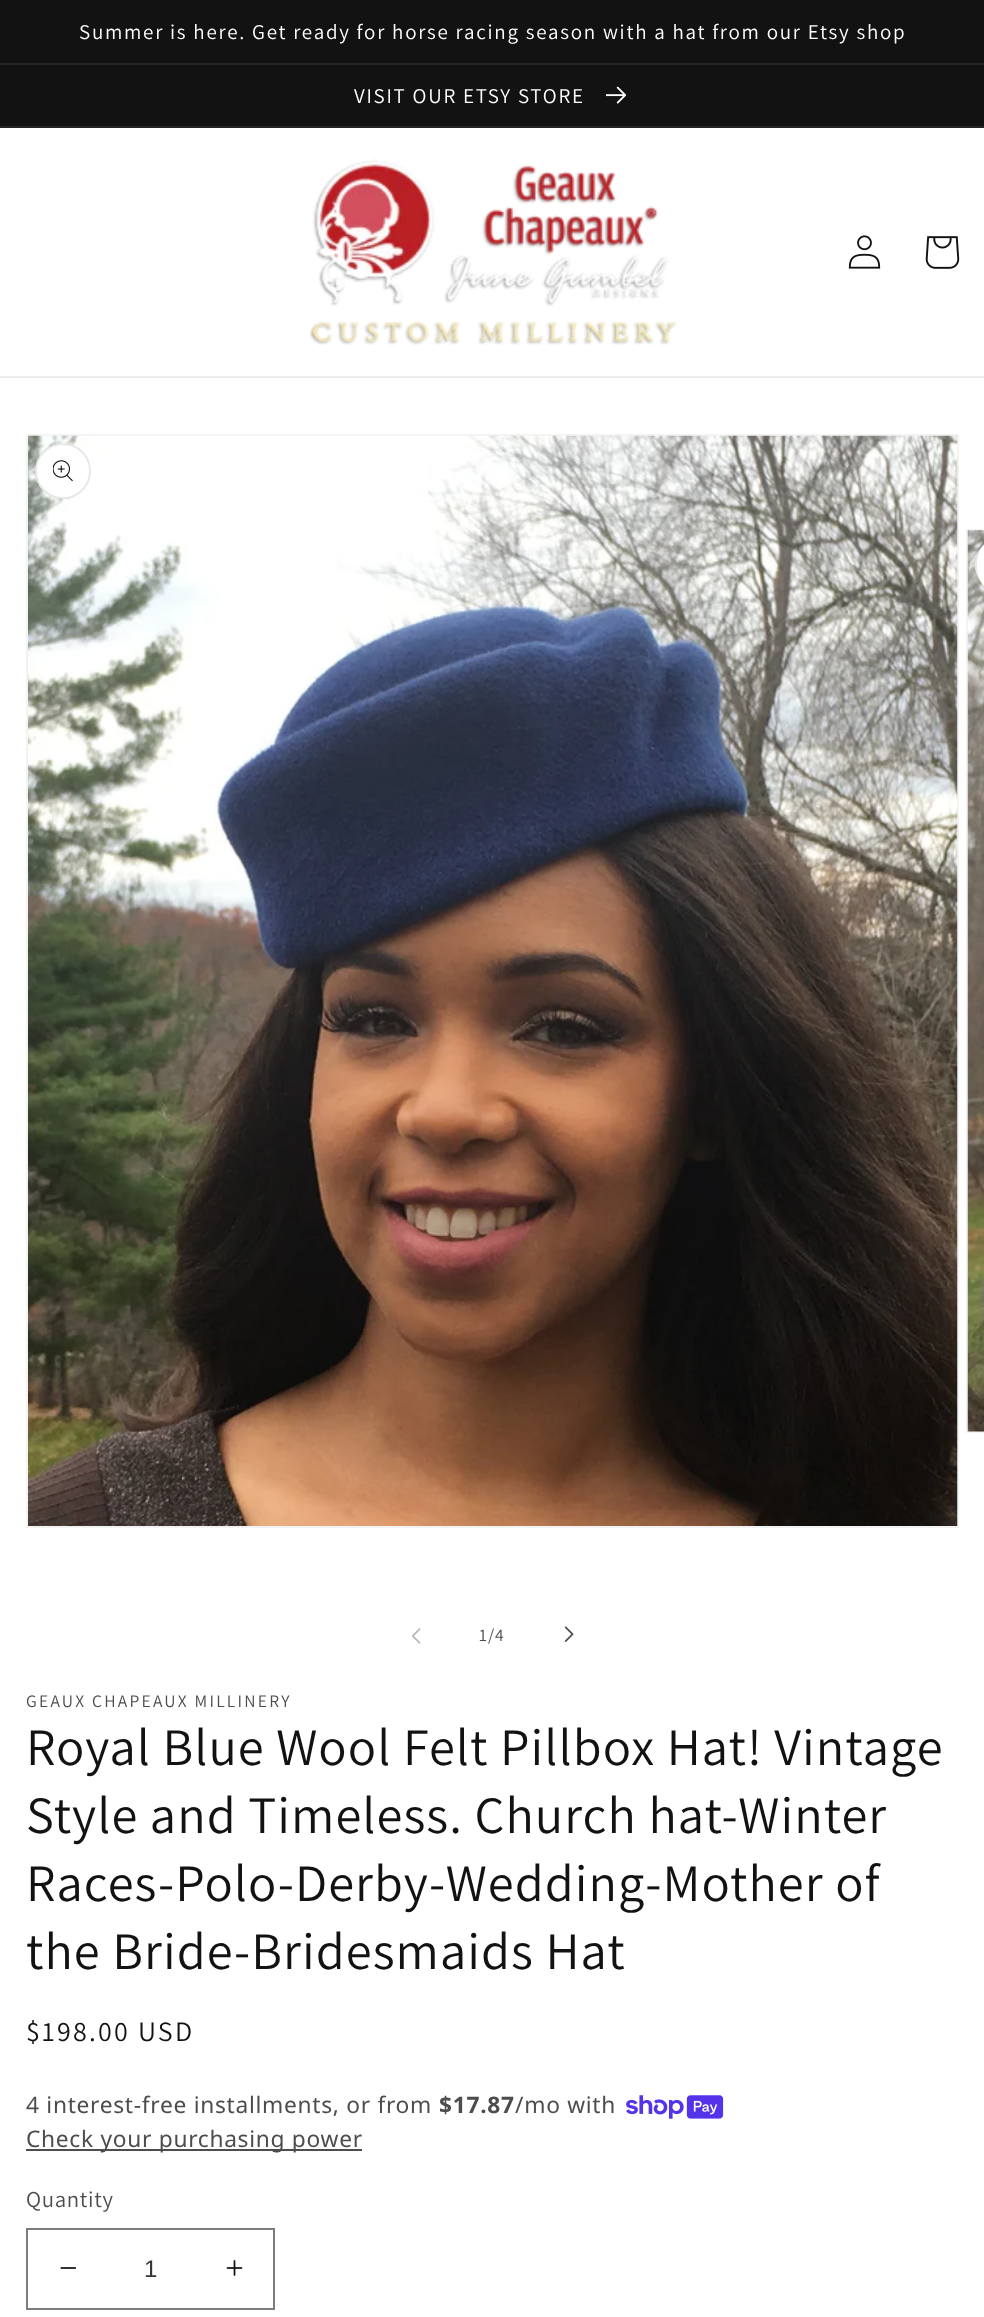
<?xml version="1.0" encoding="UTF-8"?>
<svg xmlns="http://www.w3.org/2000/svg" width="984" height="2317">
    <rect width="100%" height="100%" fill="#FFFFFF"/>
    <rect x="0" y="0" width="984" height="63" fill="#121212"/>
    <rect x="0" y="63" width="984" height="2" fill="#252525"/>
    <text x="79" y="39" font-family="Assistant" font-size="21" letter-spacing="1.75" fill="#FFFFFF">Summer is here. Get ready for horse racing season with a hat from our Etsy shop</text>
    <rect x="0" y="65" width="984" height="61" fill="#121212"/>
    <rect x="0" y="126" width="984" height="2" fill="#252525"/>
    <text x="354" y="103" font-family="Assistant" font-size="21" letter-spacing="1.75" fill="#FFFFFF">VISIT OUR ETSY STORE</text>
    <image x="606" y="86" width="21" height="18" href="img_01.png"/>
    <rect x="0" y="376" width="984" height="2" fill="#ECECEC"/>
    <image x="310" y="159" width="367" height="186" href="img_02.png"/>
    <image x="848" y="235" width="33" height="34" href="img_03.png"/>
    <image x="925" y="236" width="35" height="33" href="img_04.png"/>
    <rect x="27" y="435" width="931" height="1092" fill="none" stroke="#F3F3F3" stroke-width="2"/>
    <image x="28" y="435" width="930" height="1091" href="img_05.png"/>
    <circle cx="63" cy="471" r="28" fill="#FFFFFF"/>
    <circle cx="63" cy="471" r="27" fill="none" stroke="#121212" stroke-opacity="0.1" stroke-width="2"/>
    <image x="53" y="460" width="20" height="22" href="img_06.png"/>
    <rect x="967" y="530" width="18" height="902" fill="none" stroke="#F3F3F3" stroke-width="2"/>
    <image x="967" y="530" width="17" height="902" href="img_07.png"/>
    <path d="M 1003 537 H 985 V 593 H 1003 C 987.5 593 975 580.5 975 565 C 975 549.5 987.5 537 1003 537 Z" fill="#FFFFFF"/>
    <rect x="976" y="538" width="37" height="54" rx="27" fill="none" stroke="#121212" stroke-opacity="0.1" stroke-width="2"/>
    <image x="412" y="1628" width="9" height="16" href="img_08.png"/>
    <text x="479" y="1641" font-family="Assistant" font-size="17.5" letter-spacing="1" fill="#4D4D4D">1/4</text>
    <image x="564" y="1626" width="10" height="16" href="img_09.png"/>
    <text x="26" y="1707" font-family="Assistant" font-size="17.5" letter-spacing="2.25" fill="#4D4D4D">GEAUX CHAPEAUX MILLINERY</text>
    <text font-family="Assistant" font-size="52.5" letter-spacing="1.05" fill="#121212">
        <tspan x="26" y="1765">Royal Blue Wool Felt Pillbox Hat! Vintage</tspan>
        <tspan x="26" y="1833">Style and Timeless. Church hat-Winter</tspan>
        <tspan x="26" y="1901">Races-Polo-Derby-Wedding-Mother of</tspan>
        <tspan x="26" y="1969">the Bride-Bridesmaids Hat</tspan>
    </text>
    <text x="26" y="2041" font-family="Assistant" font-size="28" letter-spacing="2.25" fill="#121212">$198.00 USD</text>
    <text x="26" y="2113" font-family="Noto Sans" font-size="22.75" letter-spacing="0.7" fill="#4D4D4D">4 interest-free installments, or from</text>
    <text x="439" y="2113" font-family="Noto Sans" font-size="22.75" font-weight="700" letter-spacing="0.7" fill="#4D4D4D">$17.87</text>
    <text x="515" y="2113" font-family="Noto Sans" font-size="22.75" letter-spacing="0.7" fill="#4D4D4D">/mo with</text>
    <image x="626" y="2095" width="98" height="24" href="img_10.png"/>
    <rect x="26" y="2149" width="336" height="2" fill="#4D4D4D"/>
    <text x="26" y="2147" font-family="Noto Sans" font-size="22.75" letter-spacing="0.7" fill="#4D4D4D">Check your purchasing power</text>
    <text x="26" y="2207" font-family="Assistant" font-size="22.75" letter-spacing="0.7" fill="#4D4D4D">Quantity</text>
    <image x="60" y="2267" width="16" height="2" href="img_11.png"/>
    <image x="226" y="2260" width="17" height="16" href="img_12.png"/>
    <rect x="27" y="2229" width="247" height="80" fill="none" stroke="#7D7D7D" stroke-width="2"/>
    <text x="144" y="2277" font-family="Liberation Sans" font-size="24" fill="#363636">1</text>
</svg>
